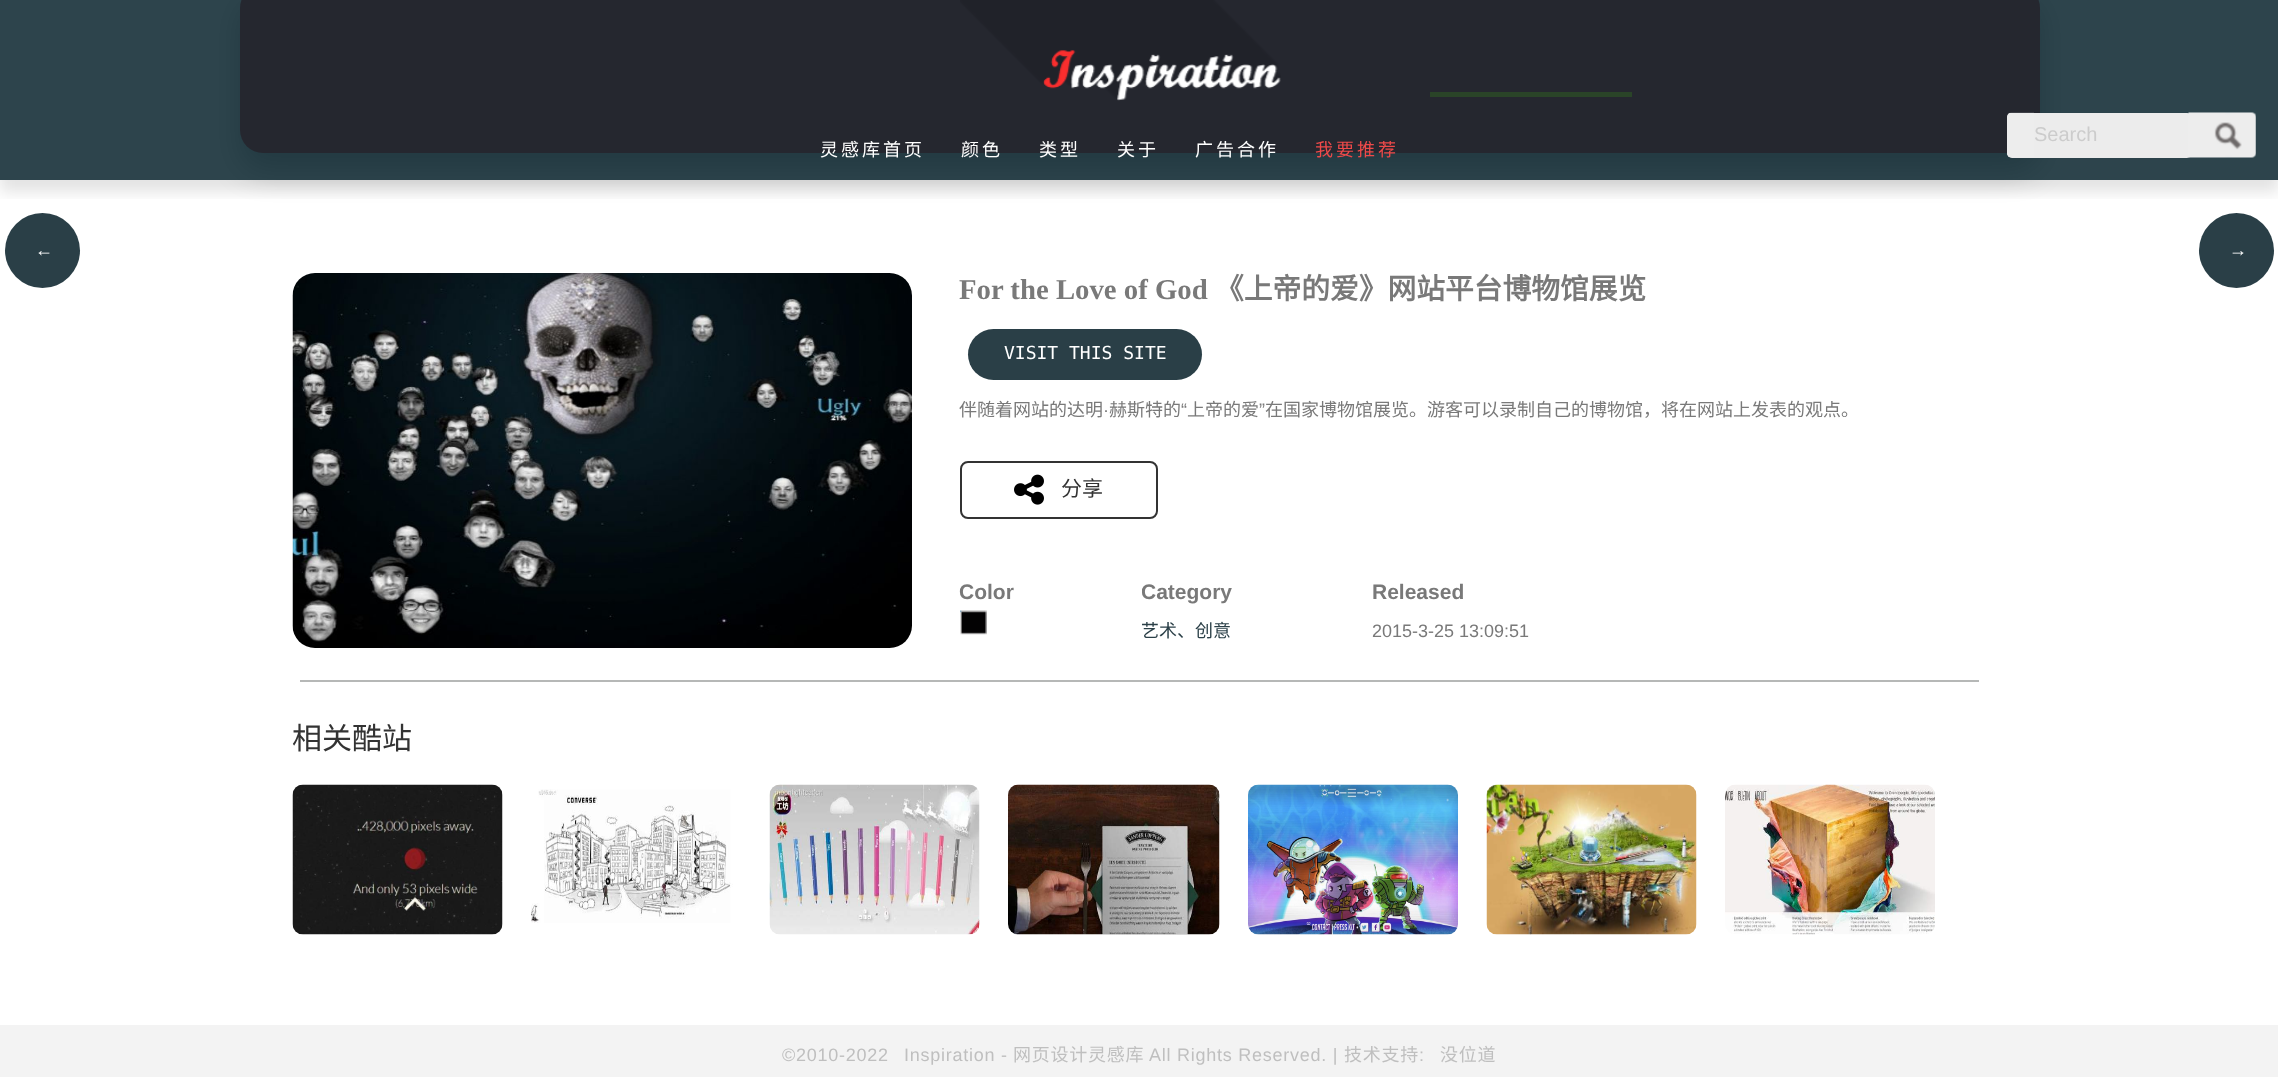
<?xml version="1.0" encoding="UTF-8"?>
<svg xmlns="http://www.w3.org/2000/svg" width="2278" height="1077">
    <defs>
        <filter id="blur1" x="-50%" y="-200%" width="200%" height="500%"><feGaussianBlur stdDeviation="15"/></filter>
        <clipPath id="clip1"><rect x="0" y="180" width="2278" height="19"/></clipPath>
        <filter id="blur2" x="-50%" y="-200%" width="200%" height="500%"><feGaussianBlur stdDeviation="7.5"/></filter>
        <clipPath id="clip2"><rect x="1142" y="572" width="229" height="78"/></clipPath>
    </defs>
    <rect width="100%" height="100%" fill="#FFFFFF"/>
    <rect x="240" y="2" width="1800" height="168" rx="23" fill="#000000" fill-opacity="0.3" filter="url(#blur1)"/>
    <rect x="240" y="-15" width="1800" height="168" rx="23" fill="#C63434"/>
    <rect x="1430" y="92" width="202" height="5" fill="#E5FF00"/>
    <circle cx="42.5" cy="250.5" r="37.5" fill="#2A3F47"/>
    <circle cx="2236.5" cy="250.5" r="37.5" fill="#2A3F47"/>
    <g clip-path="url(#clip1)">
        <rect x="0" y="12" width="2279" height="180" fill="#000000" fill-opacity="0.11" filter="url(#blur2)"/>
    </g>
    <rect x="0" y="0" width="2278" height="180" fill="#0A252E" fill-opacity="0.86"/>
    <image x="960" y="0" width="321" height="101" href="img_01.png"/>
    <rect x="2007" y="113" width="185" height="45" rx="5" fill="#ECECEC"/>
    <image x="2007" y="112" width="27" height="46" href="img_02.png"/>
    <text x="2034" y="141" font-family="Liberation Sans" font-size="20" fill="#CCCCCC">Search</text>
    <image x="2188" y="112" width="68" height="46" href="img_03.png"/>
    <text x="820" y="156" font-family="Noto Sans CJK SC" font-size="18" letter-spacing="3" fill="#FFFFFF">灵感库首页</text>
    <text x="961" y="156" font-family="Noto Sans CJK SC" font-size="18" letter-spacing="3" fill="#FFFFFF">颜色</text>
    <text x="1039" y="156" font-family="Noto Sans CJK SC" font-size="18" letter-spacing="3" fill="#FFFFFF">类型</text>
    <text x="1117" y="156" font-family="Noto Sans CJK SC" font-size="18" letter-spacing="3" fill="#FFFFFF">关于</text>
    <text x="1195" y="156" font-family="Noto Sans CJK SC" font-size="18" letter-spacing="3" fill="#FFFFFF">广告合作</text>
    <text x="1315" y="156" font-family="Noto Sans CJK SC" font-size="18" letter-spacing="3" fill="#EE4A4A">我要推荐</text>
    <text x="35" y="256" font-family="Liberation Sans" font-size="18" fill="#FFFFFF">←</text>
    <text x="2229" y="256" font-family="Liberation Sans" font-size="18" fill="#FFFFFF">→</text>
    <image x="292" y="273" width="620" height="375" href="img_04.png"/>
    <text x="959" y="299" font-family="Liberation Serif" font-size="28.75" font-weight="700" fill="#797979">For the Love of God</text>
    <text x="1215" y="299" font-family="Noto Sans CJK SC" font-size="28.75" font-weight="700" fill="#797979">《上帝的爱》网站平台博物馆展览</text>
    <rect x="968" y="329" width="234" height="51" rx="25.5" fill="#2A3F47"/>
    <text x="1004" y="359" font-family="DejaVu Sans Mono" font-size="18" fill="#FFFFFF">VISIT THIS SITE</text>
    <text x="959" y="416" font-family="Noto Sans CJK SC" font-size="18" fill="#797979">伴随着网站的达明</text>
    <text x="1109" y="416" font-family="Noto Sans CJK SC" font-size="18" fill="#797979">赫斯特的</text>
    <text x="1181" y="416" font-family="Liberation Sans" font-size="18" fill="#797979">“</text>
    <text x="1187" y="416" font-family="Noto Sans CJK SC" font-size="18" fill="#797979">上帝的爱</text>
    <text x="1259" y="416" font-family="Liberation Sans" font-size="18" fill="#797979">”</text>
    <text x="1265" y="416" font-family="Noto Sans CJK SC" font-size="18" fill="#797979">在国家博物馆展览。游客可以录制自己的博物馆，将在网站上发表的观点。</text>
    <text x="1103" y="416" font-family="Liberation Sans" font-size="18" fill="#797979">·</text>
    <rect x="961" y="462" width="196" height="56" rx="7" fill="none" stroke="#333333" stroke-width="2"/>
    <image x="1014" y="474" width="30" height="31" href="img_05.png"/>
    <text x="1061" y="496" font-family="Noto Sans CJK SC" font-size="21" fill="#333333">分享</text>
    <text x="959" y="599" font-family="Liberation Sans" font-size="21" font-weight="700" fill="#797979">Color</text>
    <image x="960" y="610" width="27" height="25" href="img_06.png"/>
    <g clip-path="url(#clip2)">
        <text x="1141" y="599" font-family="Liberation Sans" font-size="21" font-weight="700" fill="#797979">Category</text>
    </g>
    <text x="1141" y="637" font-family="Noto Sans CJK SC" font-size="18" fill="#2A3F47">艺术、创意</text>
    <text x="1372" y="599" font-family="Liberation Sans" font-size="21" font-weight="700" fill="#797979">Released</text>
    <text x="1372" y="637" font-family="Liberation Sans" font-size="18" fill="#797979">2015-3-25 13:09:51</text>
    <rect x="300" y="680" width="1679" height="2" fill="#B6B8B7"/>
    <text x="292" y="749" font-family="Noto Sans CJK SC" font-size="30" fill="#333333">相关酷站</text>
    <image x="292" y="784" width="211" height="151" href="img_07.png"/>
    <image x="531" y="789" width="202" height="134" href="img_08.png"/>
    <image x="769" y="784" width="211" height="151" href="img_09.png"/>
    <image x="1008" y="784" width="212" height="151" href="img_10.png"/>
    <image x="1248" y="784" width="210" height="151" href="img_11.png"/>
    <image x="1486" y="784" width="211" height="151" href="img_12.png"/>
    <image x="1725" y="784" width="210" height="151" href="img_13.png"/>
    <rect x="0" y="1025" width="2278" height="52" fill="#F3F3F3"/>
    <text x="782" y="1061" font-family="Liberation Sans" font-size="18" letter-spacing="0.75" fill="#BFBFBF">©2010-2022</text>
    <text x="904" y="1061" font-family="Liberation Sans" font-size="18" letter-spacing="0.75" fill="#BFBFBF">Inspiration -</text>
    <text x="1013" y="1061" font-family="Noto Sans CJK SC" font-size="18" letter-spacing="0.75" fill="#BFBFBF">网页设计灵感库</text>
    <text x="1149" y="1061" font-family="Liberation Sans" font-size="18" letter-spacing="0.75" fill="#BFBFBF">All Rights Reserved. |</text>
    <text x="1344" y="1061" font-family="Noto Sans CJK SC" font-size="18" letter-spacing="0.75" fill="#BFBFBF">技术支持</text>
    <text x="1419" y="1061" font-family="Liberation Sans" font-size="18" letter-spacing="0.75" fill="#BFBFBF">:</text>
    <text x="1440" y="1061" font-family="Noto Sans CJK SC" font-size="18" letter-spacing="0.75" fill="#BFBFBF">没位道</text>
</svg>
